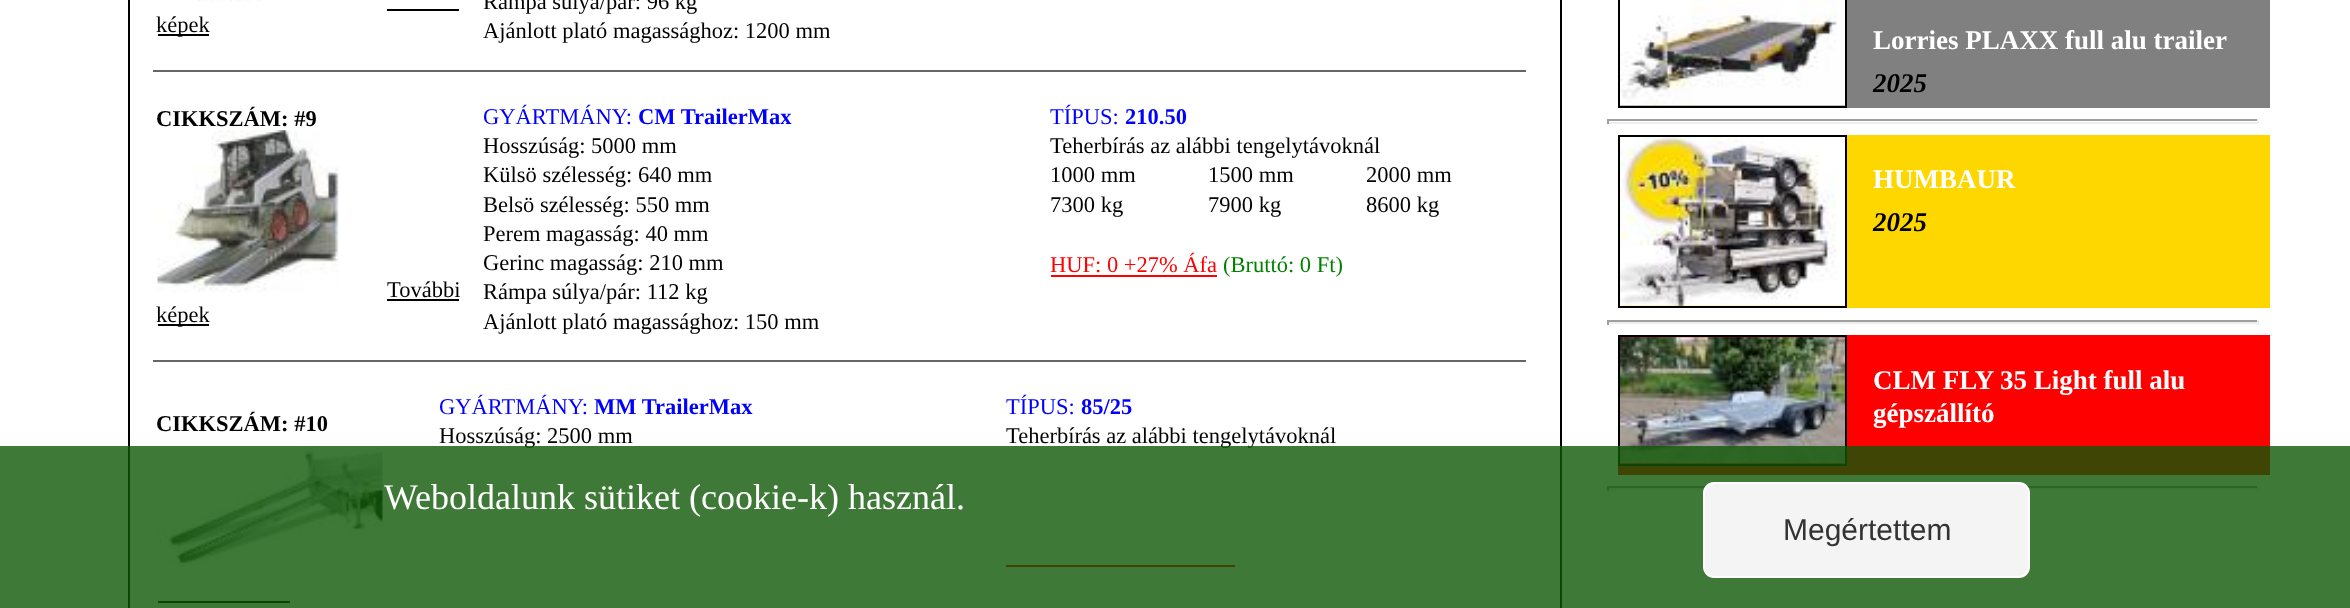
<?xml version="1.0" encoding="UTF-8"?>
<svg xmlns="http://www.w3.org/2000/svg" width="2350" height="608">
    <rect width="100%" height="100%" fill="#FFFFFF"/>
    <rect x="129" y="-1" width="1432" height="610" fill="none" stroke="#000000" stroke-width="2"/>
    <text x="483" y="9" font-family="Liberation Serif" font-size="22.5" fill="#000000">Rámpa súlya/pár: 96 kg</text>
    <image x="198" y="0" width="63" height="2" href="img_01.png"/>
    <rect x="158" y="34" width="51" height="2" fill="#000000"/>
    <text x="156" y="32" font-family="Liberation Serif" font-size="22.5" fill="#000000">képek</text>
    <rect x="387" y="9" width="72" height="2" fill="#000000"/>
    <text x="483" y="38" font-family="Liberation Serif" font-size="22.5" fill="#000000">Ajánlott plató magassághoz: 1200 mm</text>
    <rect x="153" y="70" width="1373" height="2" fill="#666666"/>
    <text x="156" y="126" font-family="Liberation Serif" font-size="22.5" font-weight="700" fill="#000000">CIKKSZÁM: #9</text>
    <image x="157" y="130" width="182" height="163" href="img_02.png"/>
    <text x="387" y="297" font-family="Liberation Serif" font-size="22.5" fill="#000000">További</text>
    <rect x="387" y="299" width="72" height="2" fill="#000000"/>
    <rect x="158" y="324" width="51" height="2" fill="#000000"/>
    <text x="156" y="322" font-family="Liberation Serif" font-size="22.5" fill="#000000">képek</text>
    <text x="483" y="124" font-family="Liberation Serif" font-size="22.5" fill="#0000FF">GYÁRTMÁNY:</text>
    <text x="638" y="124" font-family="Liberation Serif" font-size="22.5" font-weight="700" fill="#0000FF">CM TrailerMax</text>
    <text x="1050" y="124" font-family="Liberation Serif" font-size="22.5" fill="#0000FF">TÍPUS:</text>
    <text x="1125" y="124" font-family="Liberation Serif" font-size="22.5" font-weight="700" fill="#0000FF">210.50</text>
    <text x="483" y="153" font-family="Liberation Serif" font-size="22.5" fill="#000000">Hosszúság: 5000 mm</text>
    <text x="1050" y="153" font-family="Liberation Serif" font-size="22.5" fill="#000000">Teherbírás az alábbi tengelytávoknál</text>
    <text x="483" y="182" font-family="Liberation Serif" font-size="22.5" fill="#000000">Külsö szélesség: 640 mm</text>
    <text x="1050" y="182" font-family="Liberation Serif" font-size="22.5" fill="#000000">1000 mm</text>
    <text x="1208" y="182" font-family="Liberation Serif" font-size="22.5" fill="#000000">1500 mm</text>
    <text x="1366" y="182" font-family="Liberation Serif" font-size="22.5" fill="#000000">2000 mm</text>
    <text x="483" y="212" font-family="Liberation Serif" font-size="22.5" fill="#000000">Belsö szélesség: 550 mm</text>
    <text x="1050" y="212" font-family="Liberation Serif" font-size="22.5" fill="#000000">7300 kg</text>
    <text x="1208" y="212" font-family="Liberation Serif" font-size="22.5" fill="#000000">7900 kg</text>
    <text x="1366" y="212" font-family="Liberation Serif" font-size="22.5" fill="#000000">8600 kg</text>
    <text x="483" y="241" font-family="Liberation Serif" font-size="22.5" fill="#000000">Perem magasság: 40 mm</text>
    <text x="1050" y="272" font-family="Liberation Serif" font-size="22.5" fill="#FF0000">HUF: 0 +27% Áfa</text>
    <rect x="1051" y="275" width="166" height="2" fill="#FF0000"/>
    <text x="1223" y="272" font-family="Liberation Serif" font-size="22.5" fill="#008000">(Bruttó: 0 Ft)</text>
    <text font-family="Liberation Serif" font-size="22.5" fill="#000000">
        <tspan x="483" y="270">Gerinc magasság: 210 mm</tspan>
        <tspan x="483" y="299">Rámpa súlya/pár: 112 kg</tspan>
        <tspan x="483" y="329">Ajánlott plató magassághoz: 150 mm</tspan>
    </text>
    <rect x="153" y="360" width="1373" height="2" fill="#666666"/>
    <text x="439" y="414" font-family="Liberation Serif" font-size="22.5" fill="#0000FF">GYÁRTMÁNY:</text>
    <text x="594" y="414" font-family="Liberation Serif" font-size="22.5" font-weight="700" fill="#0000FF">MM TrailerMax</text>
    <text x="1006" y="414" font-family="Liberation Serif" font-size="22.5" fill="#0000FF">TÍPUS:</text>
    <text x="1081" y="414" font-family="Liberation Serif" font-size="22.5" font-weight="700" fill="#0000FF">85/25</text>
    <text x="156" y="431" font-family="Liberation Serif" font-size="22.5" font-weight="700" fill="#000000">CIKKSZÁM: #10</text>
    <image x="157" y="443" width="226" height="124" href="img_03.png"/>
    <rect x="158" y="601" width="132" height="2" fill="#000000"/>
    <text x="439" y="443" font-family="Liberation Serif" font-size="22.5" fill="#000000">Hosszúság: 2500 mm</text>
    <text x="1006" y="443" font-family="Liberation Serif" font-size="22.5" fill="#000000">Teherbírás az alábbi tengelytávoknál</text>
    <rect x="1006" y="565" width="229" height="2" fill="#FF0000"/>
    <rect x="1620" y="0" width="650" height="108" fill="#808080"/>
    <rect x="1619" y="-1" width="227" height="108" fill="none" stroke="#000000" stroke-width="2"/>
    <image x="1620" y="0" width="225" height="106" href="img_04.png"/>
    <text x="1873" y="49" font-family="Liberation Serif" font-size="27" font-weight="700" fill="#FFFFFF">Lorries PLAXX full alu trailer</text>
    <text x="1873" y="92" font-family="Liberation Serif" font-size="27" font-weight="700" font-style="italic" fill="#000000">2025</text>
    <rect x="1607" y="119" width="652" height="2" fill="#9F9F9F"/>
    <rect x="2257" y="119" width="2" height="5" fill="#EEEEEE"/>
    <rect x="1607" y="122" width="652" height="2" fill="#EEEEEE"/>
    <rect x="1607" y="119" width="2" height="5" fill="#9F9F9F"/>
    <rect x="1620" y="135" width="650" height="173" fill="#FFD700"/>
    <rect x="1619" y="136" width="227" height="171" fill="none" stroke="#000000" stroke-width="2"/>
    <image x="1620" y="137" width="225" height="169" href="img_05.png"/>
    <text x="1873" y="188" font-family="Liberation Serif" font-size="27" font-weight="700" fill="#FFFFFF">HUMBAUR</text>
    <text x="1873" y="231" font-family="Liberation Serif" font-size="27" font-weight="700" font-style="italic" fill="#000000">2025</text>
    <rect x="1607" y="320" width="652" height="2" fill="#9F9F9F"/>
    <rect x="2257" y="320" width="2" height="5" fill="#EEEEEE"/>
    <rect x="1607" y="322" width="652" height="2" fill="#EEEEEE"/>
    <rect x="1607" y="320" width="2" height="5" fill="#9F9F9F"/>
    <rect x="1618" y="335" width="652" height="140" fill="#FF0000"/>
    <rect x="1619" y="336" width="227" height="129" fill="none" stroke="#000000" stroke-width="2"/>
    <image x="1620" y="337" width="225" height="127" href="img_06.png"/>
    <text font-family="Liberation Serif" font-size="27" font-weight="700" fill="#FFFFFF">
        <tspan x="1873" y="389">CLM FLY 35 Light full alu</tspan>
        <tspan x="1873" y="422">gépszállító</tspan>
    </text>
    <rect x="1607" y="486" width="652" height="2" fill="#9F9F9F"/>
    <rect x="2257" y="486" width="2" height="5" fill="#EEEEEE"/>
    <rect x="1607" y="488" width="652" height="2" fill="#EEEEEE"/>
    <rect x="1607" y="486" width="2" height="5" fill="#9F9F9F"/>
    <rect x="0" y="446" width="2350" height="162" fill="#0F5806" fill-opacity="0.8"/>
    <text x="384" y="509" font-family="Liberation Serif" font-size="36" fill="#FFFFFF">Weboldalunk sütiket (cookie-k) használ.</text>
    <rect x="1704" y="483" width="325" height="94" rx="10" fill="#F4F4F4" stroke="#FFFFFF" stroke-width="2"/>
    <text x="1783" y="540" font-family="Liberation Sans" font-size="30" fill="#333333">Megértettem</text>
</svg>
